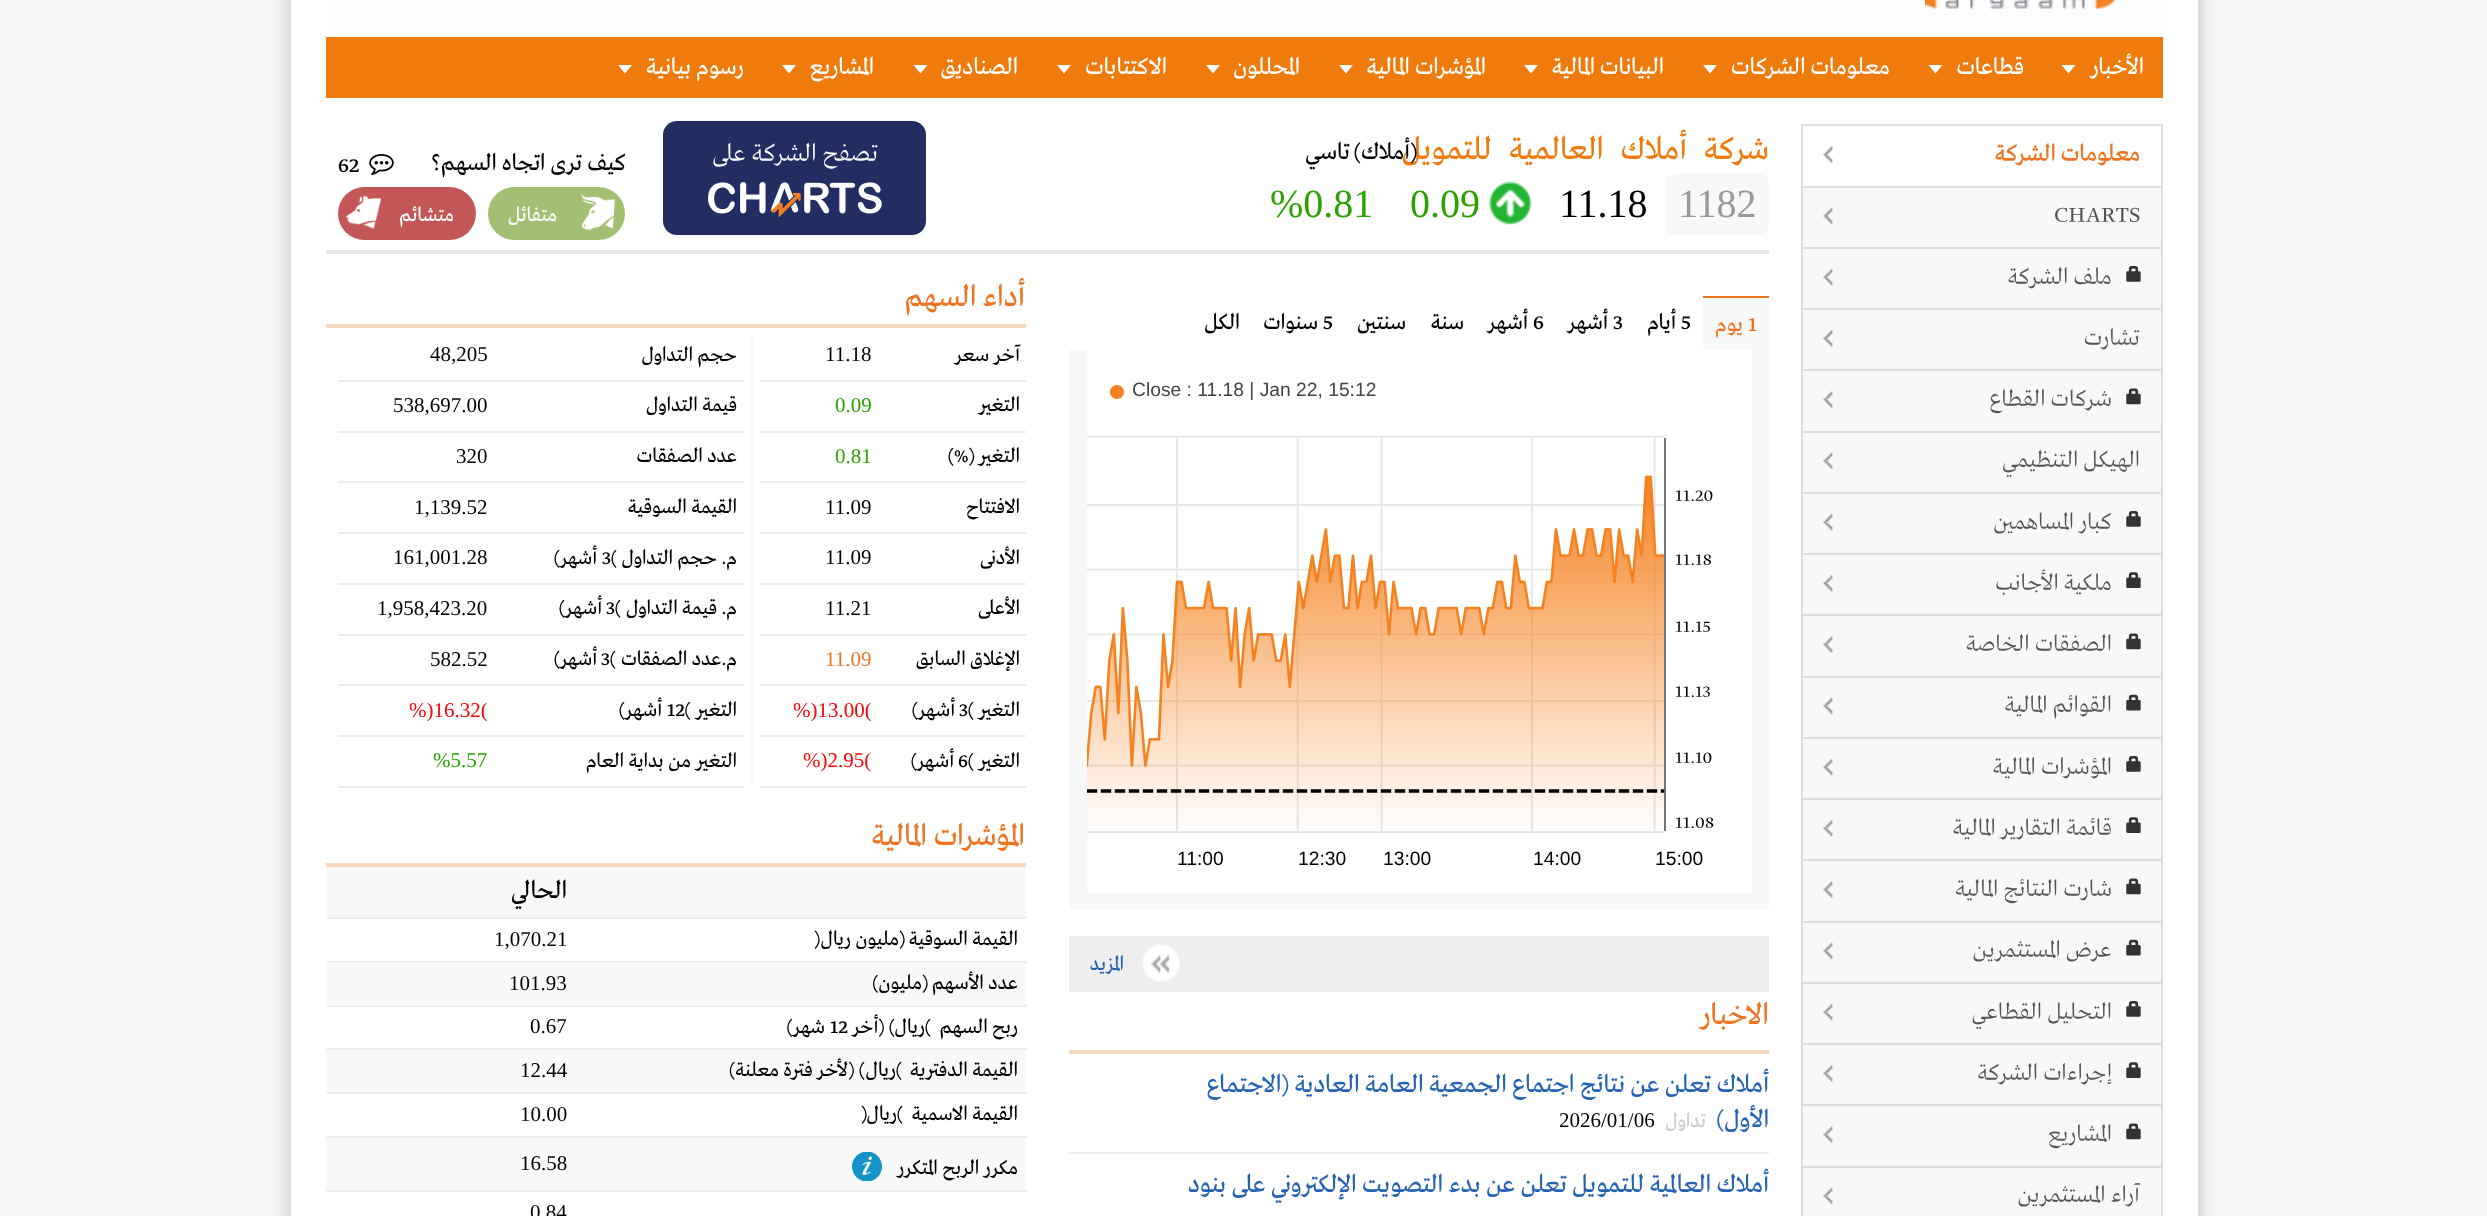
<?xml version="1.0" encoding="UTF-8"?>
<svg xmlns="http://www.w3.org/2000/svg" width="2487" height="1216">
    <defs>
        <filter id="blur1" x="-50%" y="-200%" width="200%" height="500%"><feGaussianBlur stdDeviation="11.5"/></filter>
    </defs>
    <rect width="100%" height="100%" fill="#F8F8F8"/>
    <rect x="291" y="-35" width="1907" height="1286" fill="#BDBDBD" filter="url(#blur1)"/>
    <rect x="291" y="0" width="1907" height="1216" fill="#FFFFFF"/>
    <rect x="326" y="0" width="1837" height="37" fill="#FCFDFF"/>
    <image x="1925" y="0" width="191" height="9" href="img_01.png"/>
    <rect x="326" y="37" width="1837" height="61" fill="#EE7B0B"/>
    <text x="2144" y="74" font-family="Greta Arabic" font-size="24.5" font-weight="700" direction="rtl" fill="#FFFFFF">الأخبار</text>
    <path d="M 2061.5 65 H 2075.5 L 2068.5 73.5 Z" fill="#FFFFFF"/>
    <text x="2024" y="74" font-family="Greta Arabic" font-size="24.5" font-weight="700" direction="rtl" fill="#FFFFFF">قطاعات</text>
    <path d="M 1928.5 65 H 1942.5 L 1935.5 73.5 Z" fill="#FFFFFF"/>
    <text x="1890" y="74" font-family="Greta Arabic" font-size="24.5" font-weight="700" direction="rtl" fill="#FFFFFF">معلومات الشركات</text>
    <path d="M 1703 65 H 1717 L 1710 73.5 Z" fill="#FFFFFF"/>
    <text x="1664" y="74" font-family="Greta Arabic" font-size="24.5" font-weight="700" direction="rtl" fill="#FFFFFF">البيانات المالية</text>
    <path d="M 1524 65 H 1538 L 1531 73.5 Z" fill="#FFFFFF"/>
    <text x="1486" y="74" font-family="Greta Arabic" font-size="24.5" font-weight="700" direction="rtl" fill="#FFFFFF">المؤشرات المالية</text>
    <path d="M 1339 65 H 1353 L 1346 73.5 Z" fill="#FFFFFF"/>
    <text x="1300" y="74" font-family="Greta Arabic" font-size="24.5" font-weight="700" direction="rtl" fill="#FFFFFF">المحللون</text>
    <path d="M 1206 65 H 1220 L 1213 73.5 Z" fill="#FFFFFF"/>
    <text x="1167" y="74" font-family="Greta Arabic" font-size="24.5" font-weight="700" direction="rtl" fill="#FFFFFF">الاكتتابات</text>
    <path d="M 1057 65 H 1071 L 1064 73.5 Z" fill="#FFFFFF"/>
    <text x="1018" y="74" font-family="Greta Arabic" font-size="24.5" font-weight="700" direction="rtl" fill="#FFFFFF">الصناديق</text>
    <path d="M 913.5 65 H 927.5 L 920.5 73.5 Z" fill="#FFFFFF"/>
    <text x="874" y="74" font-family="Greta Arabic" font-size="24.5" font-weight="700" direction="rtl" fill="#FFFFFF">المشاريع</text>
    <path d="M 782 65 H 796 L 789 73.5 Z" fill="#FFFFFF"/>
    <text x="744" y="74" font-family="Greta Arabic" font-size="24.5" font-weight="700" direction="rtl" fill="#FFFFFF">رسوم بيانية</text>
    <path d="M 618 65 H 632 L 625 73.5 Z" fill="#FFFFFF"/>
    <rect x="1803" y="188" width="358" height="1028" fill="#F8F8F8"/>
    <rect x="1801" y="124" width="362" height="2" fill="#DDDDDD"/>
    <rect x="1801" y="186" width="362" height="2" fill="#DDDDDD"/>
    <rect x="2161" y="126" width="2" height="60" fill="#DDDDDD"/>
    <rect x="1801" y="126" width="2" height="60" fill="#DDDDDD"/>
    <text x="2140" y="161" font-family="'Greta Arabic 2'" font-size="24.5" font-weight="700" direction="rtl" fill="#EE7421">معلومات الشركة</text>
    <image x="1823" y="146" width="10" height="17" href="img_02.png"/>
    <rect x="1801" y="247" width="362" height="2" fill="#DDDDDD"/>
    <rect x="2161" y="187" width="2" height="60" fill="#DDDDDD"/>
    <rect x="1801" y="187" width="2" height="60" fill="#DDDDDD"/>
    <text x="2054" y="222" font-family="Greta Arabic" font-size="24.5" fill="#535353">CHARTS</text>
    <image x="1823" y="207" width="10" height="18" href="img_03.png"/>
    <rect x="1801" y="308" width="362" height="2" fill="#DDDDDD"/>
    <image x="2126" y="266" width="15" height="16" href="img_04.png"/>
    <rect x="2161" y="249" width="2" height="59" fill="#DDDDDD"/>
    <rect x="1801" y="249" width="2" height="59" fill="#DDDDDD"/>
    <text x="2112" y="284" font-family="Greta Arabic" font-size="24.5" direction="rtl" fill="#535353">ملف الشركة</text>
    <image x="1823" y="268" width="10" height="18" href="img_05.png"/>
    <rect x="1801" y="369" width="362" height="2" fill="#DDDDDD"/>
    <rect x="2161" y="310" width="2" height="59" fill="#DDDDDD"/>
    <rect x="1801" y="310" width="2" height="59" fill="#DDDDDD"/>
    <text x="2140" y="345" font-family="Greta Arabic" font-size="24.5" direction="rtl" fill="#535353">تشارت</text>
    <image x="1823" y="330" width="10" height="17" href="img_06.png"/>
    <rect x="1801" y="431" width="362" height="2" fill="#DDDDDD"/>
    <image x="2126" y="388" width="15" height="17" href="img_07.png"/>
    <rect x="2161" y="371" width="2" height="60" fill="#DDDDDD"/>
    <rect x="1801" y="371" width="2" height="60" fill="#DDDDDD"/>
    <text x="2112" y="406" font-family="Greta Arabic" font-size="24.5" direction="rtl" fill="#535353">شركات القطاع</text>
    <image x="1823" y="391" width="10" height="17" href="img_08.png"/>
    <rect x="1801" y="492" width="362" height="2" fill="#DDDDDD"/>
    <rect x="2161" y="432" width="2" height="60" fill="#DDDDDD"/>
    <rect x="1801" y="432" width="2" height="60" fill="#DDDDDD"/>
    <text x="2140" y="467" font-family="Greta Arabic" font-size="24.5" direction="rtl" fill="#535353">الهيكل التنظيمي</text>
    <image x="1823" y="452" width="10" height="18" href="img_03.png"/>
    <rect x="1801" y="553" width="362" height="2" fill="#DDDDDD"/>
    <image x="2126" y="511" width="15" height="16" href="img_04.png"/>
    <rect x="2161" y="494" width="2" height="59" fill="#DDDDDD"/>
    <rect x="1801" y="494" width="2" height="59" fill="#DDDDDD"/>
    <text x="2112" y="529" font-family="Greta Arabic" font-size="24.5" direction="rtl" fill="#535353">كبار المساهمين</text>
    <image x="1823" y="513" width="10" height="18" href="img_05.png"/>
    <rect x="1801" y="614" width="362" height="2" fill="#DDDDDD"/>
    <image x="2126" y="572" width="15" height="16" href="img_09.png"/>
    <rect x="2161" y="555" width="2" height="59" fill="#DDDDDD"/>
    <rect x="1801" y="555" width="2" height="59" fill="#DDDDDD"/>
    <text x="2112" y="590" font-family="Greta Arabic" font-size="24.5" direction="rtl" fill="#535353">ملكية الأجانب</text>
    <image x="1823" y="575" width="10" height="17" href="img_06.png"/>
    <rect x="1801" y="676" width="362" height="2" fill="#DDDDDD"/>
    <image x="2126" y="633" width="15" height="17" href="img_07.png"/>
    <rect x="2161" y="616" width="2" height="60" fill="#DDDDDD"/>
    <rect x="1801" y="616" width="2" height="60" fill="#DDDDDD"/>
    <text x="2112" y="651" font-family="Greta Arabic" font-size="24.5" direction="rtl" fill="#535353">الصفقات الخاصة</text>
    <image x="1823" y="636" width="10" height="17" href="img_08.png"/>
    <rect x="1801" y="737" width="362" height="2" fill="#DDDDDD"/>
    <image x="2126" y="694" width="15" height="17" href="img_10.png"/>
    <rect x="2161" y="677" width="2" height="60" fill="#DDDDDD"/>
    <rect x="1801" y="677" width="2" height="60" fill="#DDDDDD"/>
    <text x="2112" y="712" font-family="Greta Arabic" font-size="24.5" direction="rtl" fill="#535353">القوائم المالية</text>
    <image x="1823" y="697" width="10" height="18" href="img_03.png"/>
    <rect x="1801" y="798" width="362" height="2" fill="#DDDDDD"/>
    <image x="2126" y="756" width="15" height="16" href="img_04.png"/>
    <rect x="2161" y="739" width="2" height="59" fill="#DDDDDD"/>
    <rect x="1801" y="739" width="2" height="59" fill="#DDDDDD"/>
    <text x="2112" y="774" font-family="Greta Arabic" font-size="24.5" direction="rtl" fill="#535353">المؤشرات المالية</text>
    <image x="1823" y="758" width="10" height="18" href="img_05.png"/>
    <rect x="1801" y="859" width="362" height="2" fill="#DDDDDD"/>
    <image x="2126" y="817" width="15" height="16" href="img_09.png"/>
    <rect x="2161" y="800" width="2" height="59" fill="#DDDDDD"/>
    <rect x="1801" y="800" width="2" height="59" fill="#DDDDDD"/>
    <text x="2112" y="835" font-family="Greta Arabic" font-size="24.5" direction="rtl" fill="#535353">قائمة التقارير المالية</text>
    <image x="1823" y="820" width="10" height="17" href="img_06.png"/>
    <rect x="1801" y="921" width="362" height="2" fill="#DDDDDD"/>
    <image x="2126" y="878" width="15" height="17" href="img_07.png"/>
    <rect x="2161" y="861" width="2" height="60" fill="#DDDDDD"/>
    <rect x="1801" y="861" width="2" height="60" fill="#DDDDDD"/>
    <text x="2112" y="896" font-family="Greta Arabic" font-size="24.5" direction="rtl" fill="#535353">شارت النتائج المالية</text>
    <image x="1823" y="881" width="10" height="17" href="img_08.png"/>
    <rect x="1801" y="982" width="362" height="2" fill="#DDDDDD"/>
    <image x="2126" y="939" width="15" height="17" href="img_10.png"/>
    <rect x="2161" y="922" width="2" height="60" fill="#DDDDDD"/>
    <rect x="1801" y="922" width="2" height="60" fill="#DDDDDD"/>
    <text x="2112" y="957" font-family="Greta Arabic" font-size="24.5" direction="rtl" fill="#535353">عرض المستثمرين</text>
    <image x="1823" y="942" width="10" height="18" href="img_03.png"/>
    <rect x="1801" y="1043" width="362" height="2" fill="#DDDDDD"/>
    <image x="2126" y="1001" width="15" height="16" href="img_04.png"/>
    <rect x="2161" y="984" width="2" height="59" fill="#DDDDDD"/>
    <rect x="1801" y="984" width="2" height="59" fill="#DDDDDD"/>
    <text x="2112" y="1019" font-family="Greta Arabic" font-size="24.5" direction="rtl" fill="#535353">التحليل القطاعي</text>
    <image x="1823" y="1003" width="10" height="18" href="img_05.png"/>
    <rect x="1801" y="1104" width="362" height="2" fill="#DDDDDD"/>
    <image x="2126" y="1062" width="15" height="16" href="img_09.png"/>
    <rect x="2161" y="1045" width="2" height="59" fill="#DDDDDD"/>
    <rect x="1801" y="1045" width="2" height="59" fill="#DDDDDD"/>
    <text x="2112" y="1080" font-family="Greta Arabic" font-size="24.5" direction="rtl" fill="#535353">إجراءات الشركة</text>
    <image x="1823" y="1065" width="10" height="17" href="img_06.png"/>
    <rect x="1801" y="1166" width="362" height="2" fill="#DDDDDD"/>
    <image x="2126" y="1123" width="15" height="17" href="img_07.png"/>
    <rect x="2161" y="1106" width="2" height="60" fill="#DDDDDD"/>
    <rect x="1801" y="1106" width="2" height="60" fill="#DDDDDD"/>
    <text x="2112" y="1141" font-family="Greta Arabic" font-size="24.5" direction="rtl" fill="#535353">المشاريع</text>
    <image x="1823" y="1126" width="10" height="17" href="img_08.png"/>
    <rect x="2161" y="1167" width="2" height="49" fill="#DDDDDD"/>
    <rect x="1801" y="1167" width="2" height="49" fill="#DDDDDD"/>
    <text x="2140" y="1202" font-family="Greta Arabic" font-size="24.5" direction="rtl" fill="#535353">آراء المستثمرين</text>
    <image x="1823" y="1187" width="10" height="18" href="img_03.png"/>
    <rect x="326" y="250" width="1443" height="4" fill="#E6E6E6"/>
    <text x="1769" y="159" word-spacing="10" font-family="Greta Arabic" font-size="33.25" font-weight="700" letter-spacing="-1.15" direction="rtl" fill="#EE7B0B">شركة أملاك العالمية للتمويل</text>
    <text x="1417" y="159" font-family="Greta Arabic" font-size="24.5" font-weight="700" letter-spacing="-1.15" direction="rtl" fill="#000000">(أملاك)</text>
    <text x="1350" y="159" font-family="Greta Arabic" font-size="24.5" font-weight="700" letter-spacing="-1.15" direction="rtl" fill="#000000">تاسي</text>
    <path d="M 1677 173 H 1758 C 1764 173 1769 178 1769 184 V 224 C 1769 230 1764 235 1758 235 H 1666 V 184 C 1666 178 1671 173 1677 173 Z" fill="#F8F8F8"/>
    <text x="1678" y="217" font-family="Liberation Serif" font-size="40" fill="#999999">1182</text>
    <text x="1559" y="217" font-family="Liberation Serif" font-size="40" fill="#000000">11.18</text>
    <image x="1489" y="181" width="43" height="44" href="img_11.png"/>
    <text x="1410" y="217" font-family="Liberation Serif" font-size="40" fill="#2DA100">0.09</text>
    <text x="1270" y="217" font-family="Liberation Serif" font-size="40" fill="#2DA100">%0.81</text>
    <rect x="663" y="121" width="263" height="114" rx="14" fill="#222E62"/>
    <text x="878" y="161" font-family="Greta Arabic" font-size="26.25" direction="rtl" fill="#FFFFFF">تصفح الشركة على</text>
    <image x="708" y="182" width="174" height="35" href="img_12.png"/>
    <text x="626" y="170" font-family="Greta Arabic" font-size="24.5" font-weight="700" direction="rtl" fill="#000000">كيف ترى اتجاه السهم؟</text>
    <image x="369" y="154" width="25" height="21" href="img_13.png"/>
    <text x="338" y="172" font-family="Greta Arabic" font-size="23" font-weight="700" fill="#000000">62</text>
    <rect x="488" y="187" width="137" height="53" rx="26.5" fill="#A2BF73"/>
    <image x="581" y="193" width="34" height="38" href="img_14.png"/>
    <text x="557" y="221" font-family="Greta Arabic" font-size="21" font-weight="700" direction="rtl" fill="#FFFFFF">متفائل</text>
    <rect x="338" y="187" width="138" height="53" rx="26.5" fill="#C35656"/>
    <text x="454" y="221" font-family="Greta Arabic" font-size="21" font-weight="700" direction="rtl" fill="#FFFFFF">متشائم</text>
    <image x="346" y="195" width="36" height="34" href="img_15.png"/>
    <rect x="1703" y="298" width="66" height="52" fill="#F8F8F8"/>
    <rect x="1703" y="296" width="66" height="2" fill="#EE7421"/>
    <text x="1748" y="331" font-family="Greta Arabic" font-size="23" font-weight="700" fill="#EE7421">1</text>
    <text x="1743" y="331" font-family="Greta Arabic" font-size="23" font-weight="700" direction="rtl" fill="#EE7421">يوم</text>
    <text x="1681" y="329" font-family="Greta Arabic" font-size="23" font-weight="700" fill="#000000">5</text>
    <text x="1676" y="329" font-family="Greta Arabic" font-size="23" font-weight="700" direction="rtl" fill="#000000">أيام</text>
    <text x="1613" y="329" font-family="Greta Arabic" font-size="23" font-weight="700" fill="#000000">3</text>
    <text x="1608" y="329" font-family="Greta Arabic" font-size="23" font-weight="700" direction="rtl" fill="#000000">أشهر</text>
    <text x="1533" y="329" font-family="Greta Arabic" font-size="23" font-weight="700" fill="#000000">6</text>
    <text x="1528" y="329" font-family="Greta Arabic" font-size="23" font-weight="700" direction="rtl" fill="#000000">أشهر</text>
    <text x="1464" y="329" font-family="Greta Arabic" font-size="23" font-weight="700" direction="rtl" fill="#000000">سنة</text>
    <text x="1406" y="329" font-family="Greta Arabic" font-size="23" font-weight="700" direction="rtl" fill="#000000">سنتين</text>
    <text x="1323" y="329" font-family="Greta Arabic" font-size="23" font-weight="700" fill="#000000">5</text>
    <text x="1318" y="329" font-family="Greta Arabic" font-size="23" font-weight="700" direction="rtl" fill="#000000">سنوات</text>
    <text x="1240" y="329" font-family="Greta Arabic" font-size="23" font-weight="700" direction="rtl" fill="#000000">الكل</text>
    <rect x="1069" y="350" width="700" height="560" fill="#F8F8F8"/>
    <image x="1087" y="350" width="665" height="543" href="img_16.png"/>
    <text x="1132" y="396" font-family="Liberation Sans" font-size="19.25" fill="#444444">Close : 11.18 | Jan 22, 15:12</text>
    <text x="1675" y="501" font-family="Greta Arabic" font-size="19.25" fill="#000000">11.20</text>
    <text x="1675" y="565" font-family="Greta Arabic" font-size="19.25" fill="#000000">11.18</text>
    <text x="1675" y="632" font-family="Greta Arabic" font-size="19.25" fill="#000000">11.15</text>
    <text x="1675" y="697" font-family="Greta Arabic" font-size="19.25" fill="#000000">11.13</text>
    <text x="1675" y="763" font-family="Greta Arabic" font-size="19.25" fill="#000000">11.10</text>
    <text x="1675" y="828" font-family="Greta Arabic" font-size="19.25" fill="#000000">11.08</text>
    <text x="1655" y="865" font-family="Liberation Sans" font-size="19.25" fill="#000000">15:00</text>
    <text x="1533" y="865" font-family="Liberation Sans" font-size="19.25" fill="#000000">14:00</text>
    <text x="1383" y="865" font-family="Liberation Sans" font-size="19.25" fill="#000000">13:00</text>
    <text x="1298" y="865" font-family="Liberation Sans" font-size="19.25" fill="#000000">12:30</text>
    <text x="1177" y="865" font-family="Liberation Sans" font-size="19.25" fill="#000000">11:00</text>
    <rect x="1069" y="936" width="700" height="56" fill="#EEEEEE"/>
    <image x="1142" y="944" width="38" height="38" href="img_17.png"/>
    <text x="1124" y="970" font-family="Greta Arabic" font-size="21" font-weight="700" direction="rtl" fill="#2462B4">المزيد</text>
    <rect x="1069" y="1050" width="700" height="4" fill="#F7D7B9"/>
    <text x="1769" y="1024" font-family="Greta Arabic" font-size="31.5" font-weight="700" direction="rtl" fill="#EE7421">الاخبار</text>
    <rect x="1069" y="1152" width="700" height="2" fill="#EEEEEE"/>
    <text font-family="Greta Arabic" font-size="26.25" font-weight="700" direction="rtl" fill="#2462B4">
        <tspan x="1769" y="1092">أملاك تعلن عن نتائج اجتماع الجمعية العامة العادية (الاجتماع</tspan>
        <tspan x="1769" y="1127">الأول)</tspan>
    </text>
    <text x="1706" y="1127" font-family="Greta Arabic" font-size="21" font-weight="700" direction="rtl" fill="#CCCCCC">تداول</text>
    <text x="1559" y="1127" font-family="Liberation Serif" font-size="21" fill="#000000">2026/01/06</text>
    <text x="1769" y="1192" font-family="Greta Arabic" font-size="26.25" font-weight="700" direction="rtl" fill="#2462B4">أملاك العالمية للتمويل تعلن عن بدء التصويت الإلكتروني على بنود</text>
    <rect x="326" y="324" width="700" height="4" fill="#F7D7B9"/>
    <text x="1025" y="306" font-family="Greta Arabic" font-size="31.5" font-weight="700" direction="rtl" fill="#EE7421">أداء السهم</text>
    <text x="1020" y="361" font-family="Greta Arabic" font-size="21" font-weight="700" direction="rtl" fill="#000000">آخر سعر</text>
    <rect x="760" y="380" width="266" height="2" fill="#EEEEEE"/>
    <text x="825" y="361" font-family="Liberation Serif" font-size="21" fill="#000000">11.18</text>
    <text x="1020" y="411" font-family="Greta Arabic" font-size="21" font-weight="700" direction="rtl" fill="#000000">التغير</text>
    <rect x="760" y="431" width="266" height="2" fill="#EEEEEE"/>
    <text x="835" y="412" font-family="Liberation Serif" font-size="21" fill="#2DA100">0.09</text>
    <text x="1020" y="462" font-family="Greta Arabic" font-size="21" font-weight="700" direction="rtl" fill="#000000">التغير</text>
    <text x="948" y="462" font-family="Greta Arabic" font-size="21" font-weight="700" fill="#000000">(%)</text>
    <rect x="760" y="481" width="266" height="2" fill="#EEEEEE"/>
    <text x="835" y="463" font-family="Liberation Serif" font-size="21" fill="#2DA100">0.81</text>
    <text x="1020" y="513" font-family="Greta Arabic" font-size="21" font-weight="700" direction="rtl" fill="#000000">الافتتاح</text>
    <rect x="760" y="532" width="266" height="2" fill="#EEEEEE"/>
    <text x="825" y="514" font-family="Liberation Serif" font-size="21" fill="#000000">11.09</text>
    <text x="1020" y="564" font-family="Greta Arabic" font-size="21" font-weight="700" direction="rtl" fill="#000000">الأدنى</text>
    <rect x="760" y="583" width="266" height="2" fill="#EEEEEE"/>
    <text x="825" y="564" font-family="Liberation Serif" font-size="21" fill="#000000">11.09</text>
    <text x="1020" y="614" font-family="Greta Arabic" font-size="21" font-weight="700" direction="rtl" fill="#000000">الأعلى</text>
    <rect x="760" y="634" width="266" height="2" fill="#EEEEEE"/>
    <text x="825" y="615" font-family="Liberation Serif" font-size="21" fill="#000000">11.21</text>
    <text x="1020" y="665" font-family="Greta Arabic" font-size="21" font-weight="700" direction="rtl" fill="#000000">الإغلاق السابق</text>
    <rect x="760" y="684" width="266" height="2" fill="#EEEEEE"/>
    <text x="825" y="666" font-family="Liberation Serif" font-size="21" fill="#EE7421">11.09</text>
    <text x="1020" y="716" font-family="Greta Arabic" font-size="21" font-weight="700" direction="rtl" fill="#000000">التغير</text>
    <text x="959" y="716" font-family="Greta Arabic" font-size="21" font-weight="700" fill="#000000">3(</text>
    <text x="955" y="716" font-family="Greta Arabic" font-size="21" font-weight="700" direction="rtl" fill="#000000">أشهر)</text>
    <rect x="760" y="735" width="266" height="2" fill="#EEEEEE"/>
    <text x="793" y="717" font-family="Liberation Serif" font-size="21" fill="#FF0000">%)13.00(</text>
    <text x="1020" y="767" font-family="Greta Arabic" font-size="21" font-weight="700" direction="rtl" fill="#000000">التغير</text>
    <text x="958" y="767" font-family="Greta Arabic" font-size="21" font-weight="700" fill="#000000">6(</text>
    <text x="954" y="767" font-family="Greta Arabic" font-size="21" font-weight="700" direction="rtl" fill="#000000">أشهر)</text>
    <rect x="760" y="786" width="266" height="2" fill="#EEEEEE"/>
    <text x="803" y="767" font-family="Liberation Serif" font-size="21" fill="#FF0000">%)2.95(</text>
    <rect x="751" y="331" width="2" height="457" fill="#F8F8F8"/>
    <text x="737" y="361" font-family="Greta Arabic" font-size="21" font-weight="700" direction="rtl" fill="#000000">حجم التداول</text>
    <rect x="338" y="380" width="406" height="2" fill="#EEEEEE"/>
    <text x="430" y="361" font-family="Liberation Serif" font-size="21" fill="#000000">48,205</text>
    <text x="737" y="411" font-family="Greta Arabic" font-size="21" font-weight="700" direction="rtl" fill="#000000">قيمة التداول</text>
    <rect x="338" y="431" width="406" height="2" fill="#EEEEEE"/>
    <text x="393" y="412" font-family="Liberation Serif" font-size="21" fill="#000000">538,697.00</text>
    <text x="737" y="462" font-family="Greta Arabic" font-size="21" font-weight="700" direction="rtl" fill="#000000">عدد الصفقات</text>
    <rect x="338" y="481" width="406" height="2" fill="#EEEEEE"/>
    <text x="456" y="463" font-family="Liberation Serif" font-size="21" fill="#000000">320</text>
    <text x="737" y="513" font-family="Greta Arabic" font-size="21" font-weight="700" direction="rtl" fill="#000000">القيمة السوقية</text>
    <rect x="338" y="532" width="406" height="2" fill="#EEEEEE"/>
    <text x="414" y="514" font-family="Liberation Serif" font-size="21" fill="#000000">1,139.52</text>
    <text x="737" y="564" font-family="Greta Arabic" font-size="21" font-weight="700" direction="rtl" fill="#000000">م. حجم التداول</text>
    <text x="602" y="564" font-family="Greta Arabic" font-size="21" font-weight="700" fill="#000000">3(</text>
    <text x="597" y="564" font-family="Greta Arabic" font-size="21" font-weight="700" direction="rtl" fill="#000000">أشهر)</text>
    <rect x="338" y="583" width="406" height="2" fill="#EEEEEE"/>
    <text x="393" y="564" font-family="Liberation Serif" font-size="21" fill="#000000">161,001.28</text>
    <text x="737" y="614" font-family="Greta Arabic" font-size="21" font-weight="700" direction="rtl" fill="#000000">م. قيمة التداول</text>
    <text x="606" y="614" font-family="Greta Arabic" font-size="21" font-weight="700" fill="#000000">3(</text>
    <text x="602" y="614" font-family="Greta Arabic" font-size="21" font-weight="700" direction="rtl" fill="#000000">أشهر)</text>
    <rect x="338" y="634" width="406" height="2" fill="#EEEEEE"/>
    <text x="377" y="615" font-family="Liberation Serif" font-size="21" fill="#000000">1,958,423.20</text>
    <text x="737" y="665" font-family="Greta Arabic" font-size="21" font-weight="700" direction="rtl" fill="#000000">م.عدد الصفقات</text>
    <text x="601" y="665" font-family="Greta Arabic" font-size="21" font-weight="700" fill="#000000">3(</text>
    <text x="597" y="665" font-family="Greta Arabic" font-size="21" font-weight="700" direction="rtl" fill="#000000">أشهر)</text>
    <rect x="338" y="684" width="406" height="2" fill="#EEEEEE"/>
    <text x="430" y="666" font-family="Liberation Serif" font-size="21" fill="#000000">582.52</text>
    <text x="737" y="716" font-family="Greta Arabic" font-size="21" font-weight="700" direction="rtl" fill="#000000">التغير</text>
    <text x="667" y="716" font-family="Greta Arabic" font-size="21" font-weight="700" fill="#000000">12(</text>
    <text x="662" y="716" font-family="Greta Arabic" font-size="21" font-weight="700" direction="rtl" fill="#000000">أشهر)</text>
    <rect x="338" y="735" width="406" height="2" fill="#EEEEEE"/>
    <text x="409" y="717" font-family="Liberation Serif" font-size="21" fill="#FF0000">%)16.32(</text>
    <text x="737" y="767" font-family="Greta Arabic" font-size="21" font-weight="700" direction="rtl" fill="#000000">التغير من بداية العام</text>
    <rect x="338" y="786" width="406" height="2" fill="#EEEEEE"/>
    <text x="433" y="767" font-family="Liberation Serif" font-size="21" fill="#2DA100">%5.57</text>
    <rect x="326" y="863" width="700" height="4" fill="#F7D7B9"/>
    <text x="1025" y="845" font-family="Greta Arabic" font-size="31.5" font-weight="700" direction="rtl" fill="#EE7421">المؤشرات المالية</text>
    <rect x="326" y="867" width="700" height="50" fill="#F8F8F8"/>
    <rect x="326" y="917" width="701" height="2" fill="#EEEEEE"/>
    <text x="567" y="898" font-family="Greta Arabic" font-size="26.25" font-weight="700" direction="rtl" fill="#000000">الحالي</text>
    <text x="1018" y="945" font-family="Greta Arabic" font-size="21" font-weight="700" direction="rtl" fill="#000000">القيمة السوقية</text>
    <text x="905" y="945" font-family="Greta Arabic" font-size="21" font-weight="700" direction="rtl" fill="#000000">(مليون</text>
    <text x="851" y="945" font-family="Greta Arabic" font-size="21" font-weight="700" direction="rtl" fill="#000000">ريال</text>
    <text x="814" y="945" font-family="Greta Arabic" font-size="21" font-weight="700" fill="#000000">)</text>
    <rect x="326" y="961" width="701" height="2" fill="#EEEEEE"/>
    <text x="494" y="946" font-family="Liberation Serif" font-size="21" fill="#000000">1,070.21</text>
    <rect x="326" y="963" width="700" height="42" fill="#F9F9F9"/>
    <text x="1018" y="989" font-family="Greta Arabic" font-size="21" font-weight="700" direction="rtl" fill="#000000">عدد الأسهم</text>
    <text x="928" y="989" font-family="Greta Arabic" font-size="21" font-weight="700" direction="rtl" fill="#000000">(مليون)</text>
    <rect x="326" y="1005" width="701" height="2" fill="#EEEEEE"/>
    <text x="509" y="990" font-family="Liberation Serif" font-size="21" fill="#000000">101.93</text>
    <text x="1018" y="1033" font-family="Greta Arabic" font-size="21" font-weight="700" direction="rtl" fill="#000000">ربح السهم</text>
    <text x="925" y="1033" font-family="Greta Arabic" font-size="21" font-weight="700" fill="#000000">(</text>
    <text x="925" y="1033" font-family="Greta Arabic" font-size="21" font-weight="700" direction="rtl" fill="#000000">ريال</text>
    <text x="895" y="1033" font-family="Greta Arabic" font-size="21" font-weight="700" direction="rtl" fill="#000000">) (أخر</text>
    <text x="830" y="1033" font-family="Greta Arabic" font-size="21" font-weight="700" fill="#000000">12</text>
    <text x="825" y="1033" font-family="Greta Arabic" font-size="21" font-weight="700" direction="rtl" fill="#000000">شهر)</text>
    <rect x="326" y="1048" width="701" height="2" fill="#EEEEEE"/>
    <text x="530" y="1033" font-family="Liberation Serif" font-size="21" fill="#000000">0.67</text>
    <rect x="326" y="1050" width="700" height="42" fill="#F9F9F9"/>
    <text x="1018" y="1076" font-family="Greta Arabic" font-size="21" font-weight="700" direction="rtl" fill="#000000">القيمة الدفترية</text>
    <text x="896" y="1076" font-family="Greta Arabic" font-size="21" font-weight="700" fill="#000000">(</text>
    <text x="896" y="1076" font-family="Greta Arabic" font-size="21" font-weight="700" direction="rtl" fill="#000000">ريال</text>
    <text x="865" y="1076" font-family="Greta Arabic" font-size="21" font-weight="700" direction="rtl" fill="#000000">) (لأخر فترة معلنة)</text>
    <rect x="326" y="1092" width="701" height="2" fill="#EEEEEE"/>
    <text x="520" y="1077" font-family="Liberation Serif" font-size="21" fill="#000000">12.44</text>
    <text x="1018" y="1120" font-family="Greta Arabic" font-size="21" font-weight="700" direction="rtl" fill="#000000">القيمة الاسمية</text>
    <text x="897" y="1120" font-family="Greta Arabic" font-size="21" font-weight="700" fill="#000000">(</text>
    <text x="897" y="1120" font-family="Greta Arabic" font-size="21" font-weight="700" direction="rtl" fill="#000000">ريال</text>
    <text x="861" y="1120" font-family="Greta Arabic" font-size="21" font-weight="700" fill="#000000">)</text>
    <rect x="326" y="1136" width="701" height="2" fill="#EEEEEE"/>
    <text x="520" y="1121" font-family="Liberation Serif" font-size="21" fill="#000000">10.00</text>
    <rect x="326" y="1138" width="700" height="52" fill="#F9F9F9"/>
    <text x="1018" y="1174" font-family="Greta Arabic" font-size="21" font-weight="700" direction="rtl" fill="#000000">مكرر الربح المتكرر</text>
    <image x="852" y="1152" width="30" height="29" href="img_18.png"/>
    <rect x="326" y="1190" width="701" height="2" fill="#EEEEEE"/>
    <text x="520" y="1170" font-family="Liberation Serif" font-size="21" fill="#000000">16.58</text>
    <text x="530" y="1219" font-family="Liberation Serif" font-size="21" fill="#000000">0.84</text>
</svg>
